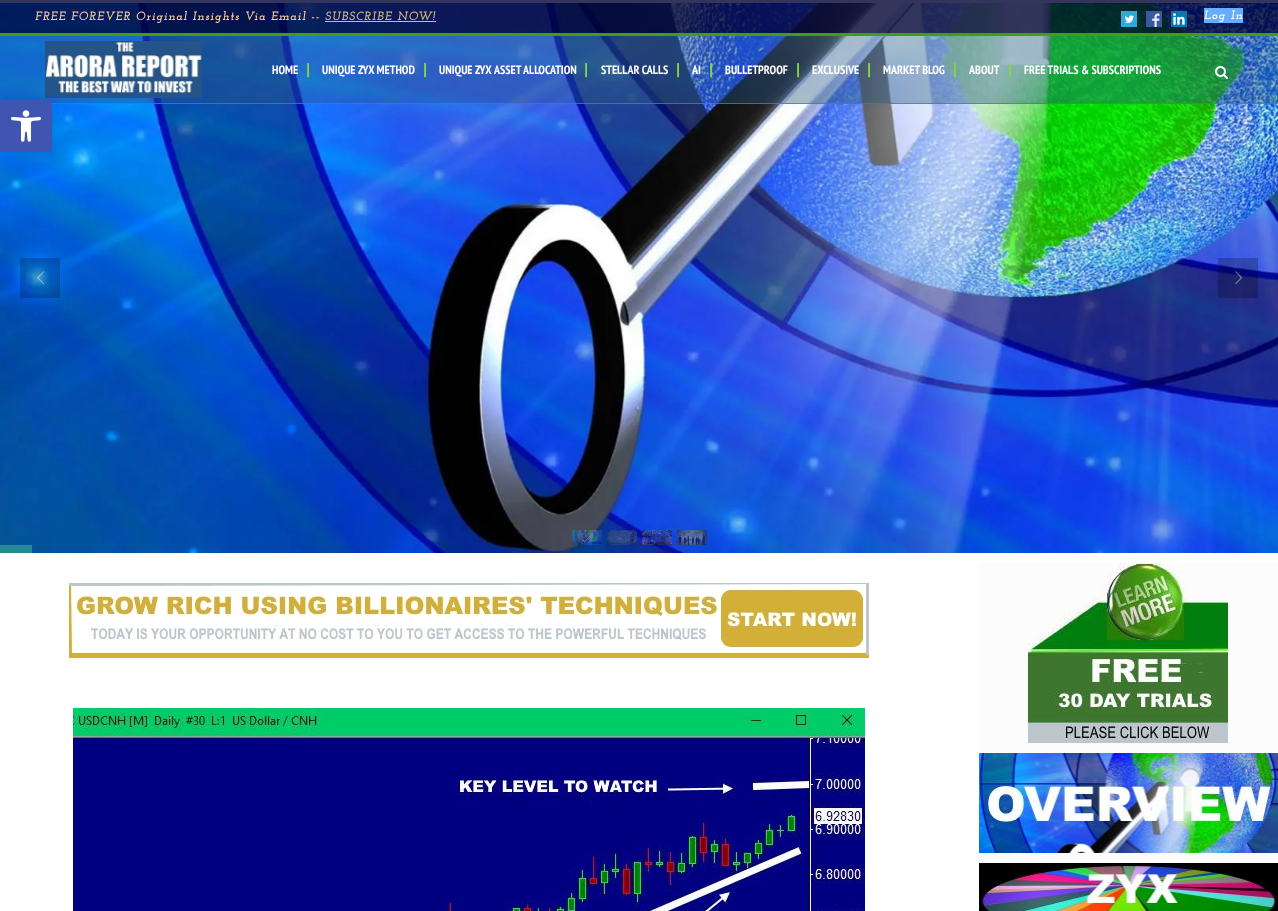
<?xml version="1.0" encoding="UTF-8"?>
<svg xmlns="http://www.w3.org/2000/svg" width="1278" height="911">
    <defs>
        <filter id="blur1" x="-50%" y="-200%" width="200%" height="500%"><feGaussianBlur stdDeviation="5"/></filter>
    </defs>
    <rect width="100%" height="100%" fill="#FFFFFF"/>
    <image x="0" y="3" width="1278" height="550" href="img_01.png"/>
    <rect x="20" y="258" width="40" height="40" fill="#000000" fill-opacity="0.22"/>
    <image x="37" y="271" width="7" height="14" href="img_02.png"/>
    <rect x="1218" y="258" width="40" height="40" fill="#000000" fill-opacity="0.22"/>
    <image x="1235" y="271" width="8" height="14" href="img_03.png"/>
    <image x="572" y="530" width="30" height="15" href="img_04.png"/>
    <image x="607" y="530" width="30" height="15" href="img_05.png"/>
    <image x="642" y="530" width="30" height="15" href="img_06.png"/>
    <image x="677" y="530" width="30" height="15" href="img_07.png"/>
    <rect x="0" y="545" width="32" height="8" fill="#67EF92" fill-opacity="0.35"/>
    <image x="69" y="583" width="800" height="75" href="img_08.png"/>
    <image x="73" y="708" width="792" height="203" href="img_09.png"/>
    <rect x="979" y="563" width="299" height="300" fill="#FCFCFC"/>
    <image x="1028" y="563" width="200" height="180" href="img_10.png"/>
    <image x="979" y="753" width="299" height="100" href="img_11.png"/>
    <image x="979" y="863" width="299" height="48" href="img_12.png"/>
    <rect x="0" y="0" width="1278" height="33" fill="#000333" fill-opacity="0.8"/>
    <rect x="0" y="33" width="1278" height="3" fill="#449C11"/>
    <text x="35" y="20" font-family="Josefin Slab" font-size="12" font-weight="700" font-style="italic" letter-spacing="1" fill="#FFCC99">FREE FOREVER Original Insights Via Email --</text>
    <text x="325" y="20" font-family="Josefin Slab" font-size="12" font-weight="700" font-style="italic" letter-spacing="1" fill="#DDBB75">SUBSCRIBE NOW!</text>
    <rect x="325" y="21" width="111" height="1" fill="#DDBB75"/>
    <image x="1121" y="11" width="16" height="16" href="img_13.png"/>
    <image x="1146" y="11" width="16" height="16" href="img_14.png"/>
    <image x="1171" y="11" width="16" height="16" href="img_15.png"/>
    <rect x="1204" y="8" width="39" height="15" fill="#66ADFF"/>
    <text x="1204" y="19" font-family="Josefin Slab" font-size="12" font-weight="700" font-style="italic" letter-spacing="1" fill="#FFFFFF">Log In</text>
    <rect x="0" y="36" width="1278" height="68" fill="#25548A" fill-opacity="0.4"/>
    <rect x="52" y="103" width="1226" height="1" fill="#449C11" fill-opacity="0.8"/>
    <image x="45" y="41" width="157" height="57" href="img_16.png"/>
    <text x="272" y="74" font-family="PT Sans Narrow" font-size="12" font-weight="700" fill="#FFFFFF">HOME</text>
    <text x="306" y="74" font-family="Archivo Black" font-size="15" font-weight="900" fill="#81D742">|</text>
    <text x="322" y="74" font-family="PT Sans Narrow" font-size="12" font-weight="700" fill="#FFFFFF">UNIQUE ZYX METHOD</text>
    <text x="423" y="74" font-family="Archivo Black" font-size="15" font-weight="900" fill="#81D742">|</text>
    <text x="439" y="74" font-family="PT Sans Narrow" font-size="12" font-weight="700" fill="#FFFFFF">UNIQUE ZYX</text>
    <text x="494" y="74" font-family="PT Sans Narrow" font-size="12" font-weight="700" fill="#FFFFFF">ASSET ALLOCATION</text>
    <text x="584" y="74" font-family="Archivo Black" font-size="15" font-weight="900" fill="#81D742">|</text>
    <text x="601" y="74" font-family="PT Sans Narrow" font-size="12" font-weight="700" fill="#FFFFFF">STELLAR CALLS</text>
    <text x="676" y="74" font-family="Archivo Black" font-size="15" font-weight="900" fill="#81D742">|</text>
    <text x="692" y="74" font-family="PT Sans Narrow" font-size="12" font-weight="700" fill="#FFFFFF">AI</text>
    <text x="709" y="74" font-family="Archivo Black" font-size="15" font-weight="900" fill="#81D742">|</text>
    <text x="725" y="74" font-family="PT Sans Narrow" font-size="12" font-weight="700" fill="#FFFFFF">BULLETPROOF</text>
    <text x="796" y="74" font-family="Archivo Black" font-size="15" font-weight="900" fill="#81D742">|</text>
    <text x="812" y="74" font-family="PT Sans Narrow" font-size="12" font-weight="700" fill="#FFFFFF">EXCLUSIVE</text>
    <text x="867" y="74" font-family="Archivo Black" font-size="15" font-weight="900" fill="#81D742">|</text>
    <text x="883" y="74" font-family="PT Sans Narrow" font-size="12" font-weight="700" fill="#FFFFFF">MARKET BLOG</text>
    <text x="953" y="74" font-family="Archivo Black" font-size="15" font-weight="900" fill="#81D742">|</text>
    <text x="969" y="74" font-family="PT Sans Narrow" font-size="12" font-weight="700" fill="#FFFFFF">ABOUT</text>
    <text x="1008" y="74" font-family="Archivo Black" font-size="15" font-weight="900" fill="#81D742">|</text>
    <text x="1024" y="74" font-family="PT Sans Narrow" font-size="12" font-weight="700" fill="#FFFFFF">FREE TRIALS &amp; SUBSCRIPTIONS</text>
    <image x="1215" y="66" width="13" height="13" href="img_17.png"/>
    <rect x="0" y="100" width="52" height="52" fill="#000000" fill-opacity="0.1" filter="url(#blur1)"/>
    <rect x="0" y="100" width="52" height="52" fill="#4054B2"/>
    <image x="11" y="110" width="30" height="32" href="img_18.png"/>
</svg>
